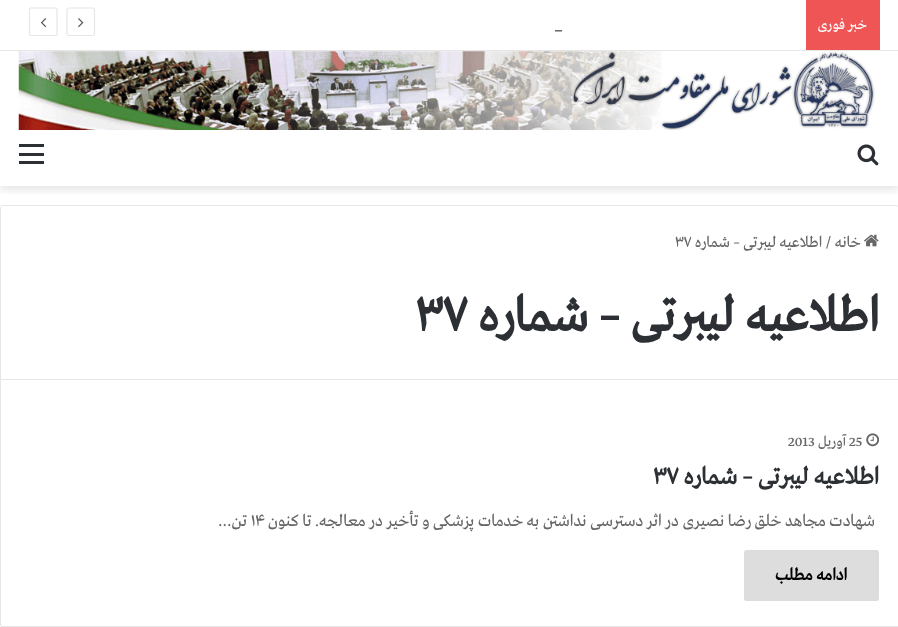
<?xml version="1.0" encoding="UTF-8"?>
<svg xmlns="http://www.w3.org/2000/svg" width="898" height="627">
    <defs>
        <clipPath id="clip1"><rect x="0" y="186" width="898" height="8"/></clipPath>
        <filter id="blur1" x="-50%" y="-200%" width="200%" height="500%"><feGaussianBlur stdDeviation="4.5"/></filter>
    </defs>
    <rect width="100%" height="100%" fill="#FFFFFF"/>
    <g clip-path="url(#clip1)">
        <rect x="0" y="55" width="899" height="135" fill="#000000" fill-opacity="0.1" filter="url(#blur1)"/>
    </g>
    <rect x="6" y="49" width="887" height="1" fill="#FFFFFF"/>
    <rect x="0" y="50" width="898" height="1" fill="#E6E6E6"/>
    <rect x="806" y="0" width="74" height="50" fill="#F05555"/>
    <text x="867" y="29" font-family="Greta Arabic" font-size="15" direction="rtl" fill="#FFFFFF">خبر فوری</text>
    <text x="555" y="29" font-family="Greta Arabic" font-size="16.25" fill="#2C2F34">_</text>
    <path d="M 92.5 35.5 H 69 C 67.5 35.5 67 35 67 34 V 10 C 67 9 67.5 8 69 8 H 92.5 C 93.5 8 94.5 9 94.5 10 V 34 C 94.5 35 93.5 35.5 92.5 35.5 Z" fill="none" stroke="#E6E6E6" stroke-width="1.2"/>
    <image x="78" y="18" width="6" height="10" href="img_01.png"/>
    <path d="M 55 35.5 H 31 C 30 35.5 29.5 35 29.5 34 V 10 C 29.5 9 30 8 31 8 H 55 C 56 8 57 9 57 10 V 34 C 57 35 56 35.5 55 35.5 Z" fill="none" stroke="#E6E6E6" stroke-width="1.2"/>
    <image x="40" y="18" width="7" height="10" href="img_02.png"/>
    <image x="18" y="51" width="857" height="79" href="img_03.png"/>
    <image x="857" y="144" width="22" height="22" href="img_04.png"/>
    <rect x="19" y="153" width="25" height="3" fill="#2C2F34"/>
    <rect x="19" y="144" width="25" height="3" fill="#2C2F34"/>
    <rect x="19" y="161" width="25" height="3" fill="#2C2F34"/>
    <path d="M 2.5 205.5 H 896.5 C 897.5 205.5 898.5 206.5 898.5 207.5 V 379.5 H 0.5 V 207.5 C 0.5 206.5 1.5 205.5 2.5 205.5 Z" fill="none" stroke="#E6E6E6"/>
    <image x="864" y="234" width="15" height="13" href="img_05.png"/>
    <text x="861" y="247" font-family="Greta Arabic" font-size="16.25" direction="rtl" fill="#666666">خانه</text>
    <text x="826" y="247" font-family="Greta Arabic" font-size="16.25" fill="#666666">/</text>
    <text x="822" y="247" font-family="Greta Arabic" font-size="16.25" direction="rtl" fill="#666666">اطلاعیه لیبرتی – شماره</text>
    <text x="675" y="247" font-family="Greta Arabic" font-size="16.25" fill="#666666">۳۷</text>
    <text x="879" y="331" font-family="Greta Arabic" font-size="51.25" font-weight="700" direction="rtl" fill="#2C2F34">اطلاعیه لیبرتی – شماره</text>
    <text x="415" y="331" font-family="Greta Arabic" font-size="51.25" font-weight="700" fill="#2C2F34">۳۷</text>
    <rect x="1" y="626" width="897" height="1" fill="#E6E6E6"/>
    <rect x="0" y="380" width="1" height="246" fill="#E6E6E6"/>
    <image x="866" y="433" width="13" height="14" href="img_06.png"/>
    <text x="849" y="446" font-family="Greta Arabic" font-size="15" fill="#666666">25</text>
    <text x="846" y="446" font-family="Greta Arabic" font-size="15" direction="rtl" fill="#666666">آوریل</text>
    <text x="788" y="446" font-family="Greta Arabic" font-size="15" fill="#666666">2013</text>
    <text x="879" y="484" font-family="Greta Arabic" font-size="25" font-weight="700" direction="rtl" fill="#2C2F34">اطلاعیه لیبرتی – شماره</text>
    <text x="653" y="484" font-family="Greta Arabic" font-size="25" font-weight="700" fill="#2C2F34">۳۷</text>
    <text x="875" y="526" font-family="Greta Arabic" font-size="17.5" direction="rtl" fill="#666666">شهادت مجاهد خلق رضا نصیری در اثر دسترسی نداشتن به خدمات پزشکی و تأخیر در معالجه. تا کنون</text>
    <text x="251" y="526" font-family="Greta Arabic" font-size="17.5" fill="#666666">۱۴</text>
    <text x="247" y="526" font-family="Greta Arabic" font-size="17.5" direction="rtl" fill="#666666">تن…</text>
    <rect x="744" y="550" width="135" height="51" rx="2.5" fill="#DDDDDD"/>
    <text x="847" y="580" font-family="Greta Arabic" font-size="17.5" font-weight="700" direction="rtl" fill="#000000">ادامه مطلب</text>
</svg>
